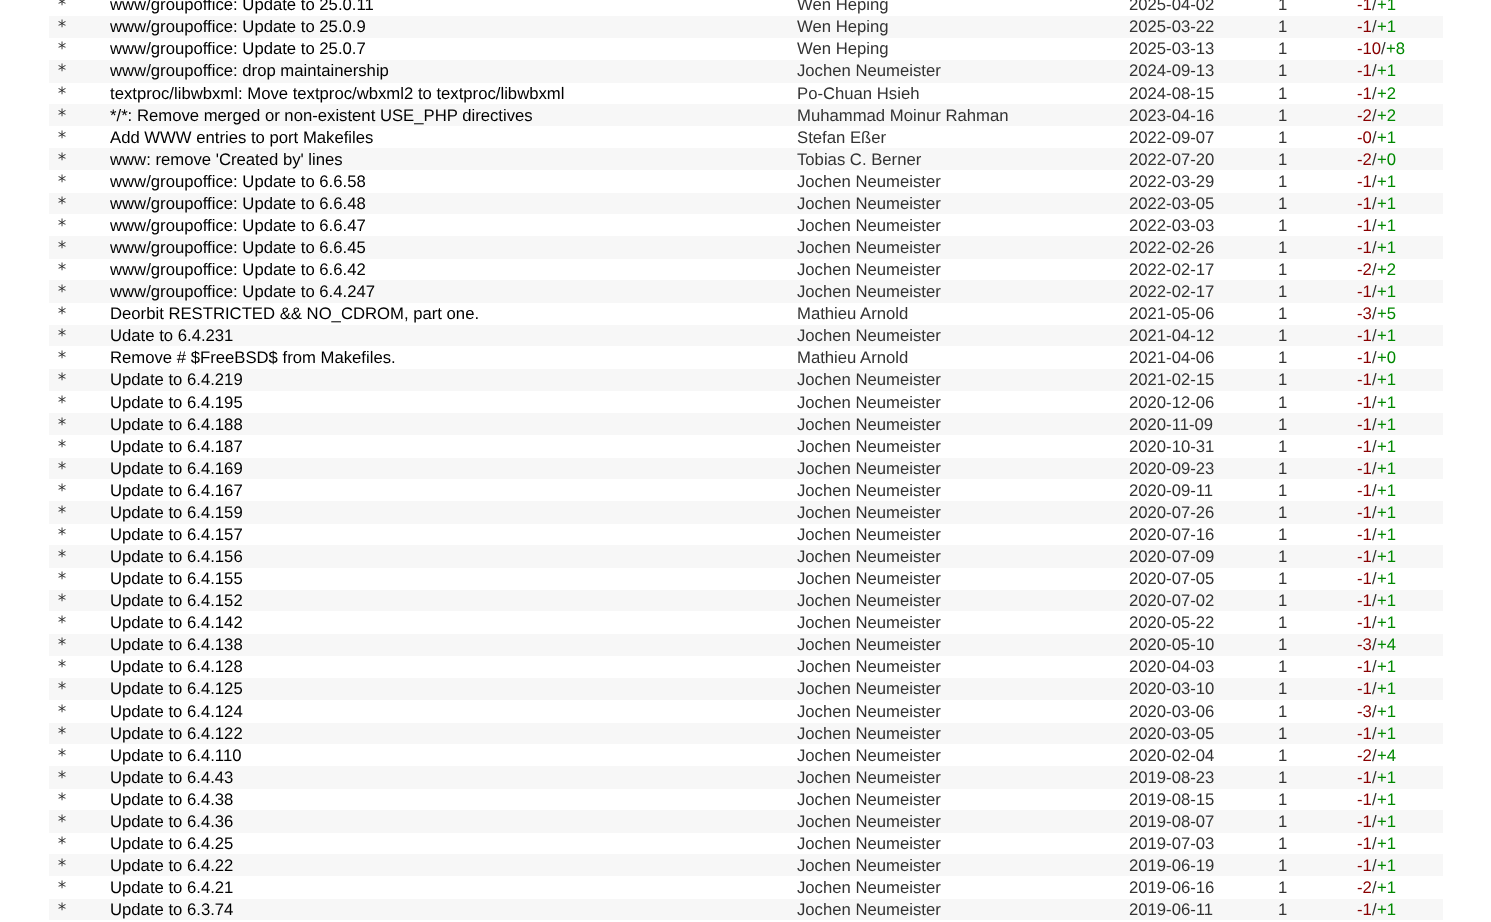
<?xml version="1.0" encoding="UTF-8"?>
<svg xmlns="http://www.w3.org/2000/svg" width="1491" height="922">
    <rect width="100%" height="100%" fill="#FFFFFF"/>
    <text x="57" y="10" font-family="DejaVu Sans Mono" font-size="16.7" fill="#333333">*</text>
    <text x="110" y="10" font-family="Liberation Sans" font-size="16.7" fill="#000000">www/groupoffice: Update to 25.0.11</text>
    <text x="797" y="10" font-family="Liberation Sans" font-size="16.7" fill="#333333">Wen Heping</text>
    <text x="1129" y="10" font-family="Liberation Sans" font-size="16.7" fill="#333333">2025-04-02</text>
    <text x="1278" y="10" font-family="Liberation Sans" font-size="16.7" fill="#333333">1</text>
    <text x="1357" y="10" font-family="Liberation Sans" font-size="16.7" fill="#880000">-1</text>
    <text x="1372" y="10" font-family="Liberation Sans" font-size="16.7" fill="#333333">/</text>
    <text x="1377" y="10" font-family="Liberation Sans" font-size="16.7" fill="#008800">+1</text>
    <rect x="49" y="16" width="1394" height="22" fill="#F7F7F7"/>
    <text x="57" y="32" font-family="DejaVu Sans Mono" font-size="16.7" fill="#333333">*</text>
    <text x="110" y="32" font-family="Liberation Sans" font-size="16.7" fill="#000000">www/groupoffice: Update to 25.0.9</text>
    <text x="797" y="32" font-family="Liberation Sans" font-size="16.7" fill="#333333">Wen Heping</text>
    <text x="1129" y="32" font-family="Liberation Sans" font-size="16.7" fill="#333333">2025-03-22</text>
    <text x="1278" y="32" font-family="Liberation Sans" font-size="16.7" fill="#333333">1</text>
    <text x="1357" y="32" font-family="Liberation Sans" font-size="16.7" fill="#880000">-1</text>
    <text x="1372" y="32" font-family="Liberation Sans" font-size="16.7" fill="#333333">/</text>
    <text x="1377" y="32" font-family="Liberation Sans" font-size="16.7" fill="#008800">+1</text>
    <text x="57" y="54" font-family="DejaVu Sans Mono" font-size="16.7" fill="#333333">*</text>
    <text x="110" y="54" font-family="Liberation Sans" font-size="16.7" fill="#000000">www/groupoffice: Update to 25.0.7</text>
    <text x="797" y="54" font-family="Liberation Sans" font-size="16.7" fill="#333333">Wen Heping</text>
    <text x="1129" y="54" font-family="Liberation Sans" font-size="16.7" fill="#333333">2025-03-13</text>
    <text x="1278" y="54" font-family="Liberation Sans" font-size="16.7" fill="#333333">1</text>
    <text x="1357" y="54" font-family="Liberation Sans" font-size="16.7" fill="#880000">-10</text>
    <text x="1381" y="54" font-family="Liberation Sans" font-size="16.7" fill="#333333">/</text>
    <text x="1386" y="54" font-family="Liberation Sans" font-size="16.7" fill="#008800">+8</text>
    <rect x="49" y="60" width="1394" height="23" fill="#F7F7F7"/>
    <text x="57" y="76" font-family="DejaVu Sans Mono" font-size="16.7" fill="#333333">*</text>
    <text x="110" y="76" font-family="Liberation Sans" font-size="16.7" fill="#000000">www/groupoffice: drop maintainership</text>
    <text x="797" y="76" font-family="Liberation Sans" font-size="16.7" fill="#333333">Jochen Neumeister</text>
    <text x="1129" y="76" font-family="Liberation Sans" font-size="16.7" fill="#333333">2024-09-13</text>
    <text x="1278" y="76" font-family="Liberation Sans" font-size="16.7" fill="#333333">1</text>
    <text x="1357" y="76" font-family="Liberation Sans" font-size="16.7" fill="#880000">-1</text>
    <text x="1372" y="76" font-family="Liberation Sans" font-size="16.7" fill="#333333">/</text>
    <text x="1377" y="76" font-family="Liberation Sans" font-size="16.7" fill="#008800">+1</text>
    <text x="57" y="99" font-family="DejaVu Sans Mono" font-size="16.7" fill="#333333">*</text>
    <text x="110" y="99" font-family="Liberation Sans" font-size="16.7" fill="#000000">textproc/libwbxml: Move textproc/wbxml2 to textproc/libwbxml</text>
    <text x="797" y="99" font-family="Liberation Sans" font-size="16.7" fill="#333333">Po-Chuan Hsieh</text>
    <text x="1129" y="99" font-family="Liberation Sans" font-size="16.7" fill="#333333">2024-08-15</text>
    <text x="1278" y="99" font-family="Liberation Sans" font-size="16.7" fill="#333333">1</text>
    <text x="1357" y="99" font-family="Liberation Sans" font-size="16.7" fill="#880000">-1</text>
    <text x="1372" y="99" font-family="Liberation Sans" font-size="16.7" fill="#333333">/</text>
    <text x="1377" y="99" font-family="Liberation Sans" font-size="16.7" fill="#008800">+2</text>
    <rect x="49" y="104" width="1394" height="22" fill="#F7F7F7"/>
    <text x="57" y="121" font-family="DejaVu Sans Mono" font-size="16.7" fill="#333333">*</text>
    <text x="110" y="121" font-family="Liberation Sans" font-size="16.7" fill="#000000">*/*: Remove merged or non-existent USE_PHP directives</text>
    <text x="797" y="121" font-family="Liberation Sans" font-size="16.7" fill="#333333">Muhammad Moinur Rahman</text>
    <text x="1129" y="121" font-family="Liberation Sans" font-size="16.7" fill="#333333">2023-04-16</text>
    <text x="1278" y="121" font-family="Liberation Sans" font-size="16.7" fill="#333333">1</text>
    <text x="1357" y="121" font-family="Liberation Sans" font-size="16.7" fill="#880000">-2</text>
    <text x="1372" y="121" font-family="Liberation Sans" font-size="16.7" fill="#333333">/</text>
    <text x="1377" y="121" font-family="Liberation Sans" font-size="16.7" fill="#008800">+2</text>
    <text x="57" y="143" font-family="DejaVu Sans Mono" font-size="16.7" fill="#333333">*</text>
    <text x="110" y="143" font-family="Liberation Sans" font-size="16.7" fill="#000000">Add WWW entries to port Makefiles</text>
    <text x="797" y="143" font-family="Liberation Sans" font-size="16.7" fill="#333333">Stefan Eßer</text>
    <text x="1129" y="143" font-family="Liberation Sans" font-size="16.7" fill="#333333">2022-09-07</text>
    <text x="1278" y="143" font-family="Liberation Sans" font-size="16.7" fill="#333333">1</text>
    <text x="1357" y="143" font-family="Liberation Sans" font-size="16.7" fill="#880000">-0</text>
    <text x="1372" y="143" font-family="Liberation Sans" font-size="16.7" fill="#333333">/</text>
    <text x="1377" y="143" font-family="Liberation Sans" font-size="16.7" fill="#008800">+1</text>
    <rect x="49" y="148" width="1394" height="22" fill="#F7F7F7"/>
    <text x="57" y="165" font-family="DejaVu Sans Mono" font-size="16.7" fill="#333333">*</text>
    <text x="110" y="165" font-family="Liberation Sans" font-size="16.7" fill="#000000">www: remove 'Created by' lines</text>
    <text x="797" y="165" font-family="Liberation Sans" font-size="16.7" fill="#333333">Tobias C. Berner</text>
    <text x="1129" y="165" font-family="Liberation Sans" font-size="16.7" fill="#333333">2022-07-20</text>
    <text x="1278" y="165" font-family="Liberation Sans" font-size="16.7" fill="#333333">1</text>
    <text x="1357" y="165" font-family="Liberation Sans" font-size="16.7" fill="#880000">-2</text>
    <text x="1372" y="165" font-family="Liberation Sans" font-size="16.7" fill="#333333">/</text>
    <text x="1377" y="165" font-family="Liberation Sans" font-size="16.7" fill="#008800">+0</text>
    <text x="57" y="187" font-family="DejaVu Sans Mono" font-size="16.7" fill="#333333">*</text>
    <text x="110" y="187" font-family="Liberation Sans" font-size="16.7" fill="#000000">www/groupoffice: Update to 6.6.58</text>
    <text x="797" y="187" font-family="Liberation Sans" font-size="16.7" fill="#333333">Jochen Neumeister</text>
    <text x="1129" y="187" font-family="Liberation Sans" font-size="16.7" fill="#333333">2022-03-29</text>
    <text x="1278" y="187" font-family="Liberation Sans" font-size="16.7" fill="#333333">1</text>
    <text x="1357" y="187" font-family="Liberation Sans" font-size="16.7" fill="#880000">-1</text>
    <text x="1372" y="187" font-family="Liberation Sans" font-size="16.7" fill="#333333">/</text>
    <text x="1377" y="187" font-family="Liberation Sans" font-size="16.7" fill="#008800">+1</text>
    <rect x="49" y="193" width="1394" height="21" fill="#F7F7F7"/>
    <text x="57" y="209" font-family="DejaVu Sans Mono" font-size="16.7" fill="#333333">*</text>
    <text x="110" y="209" font-family="Liberation Sans" font-size="16.7" fill="#000000">www/groupoffice: Update to 6.6.48</text>
    <text x="797" y="209" font-family="Liberation Sans" font-size="16.7" fill="#333333">Jochen Neumeister</text>
    <text x="1129" y="209" font-family="Liberation Sans" font-size="16.7" fill="#333333">2022-03-05</text>
    <text x="1278" y="209" font-family="Liberation Sans" font-size="16.7" fill="#333333">1</text>
    <text x="1357" y="209" font-family="Liberation Sans" font-size="16.7" fill="#880000">-1</text>
    <text x="1372" y="209" font-family="Liberation Sans" font-size="16.7" fill="#333333">/</text>
    <text x="1377" y="209" font-family="Liberation Sans" font-size="16.7" fill="#008800">+1</text>
    <text x="57" y="231" font-family="DejaVu Sans Mono" font-size="16.7" fill="#333333">*</text>
    <text x="110" y="231" font-family="Liberation Sans" font-size="16.7" fill="#000000">www/groupoffice: Update to 6.6.47</text>
    <text x="797" y="231" font-family="Liberation Sans" font-size="16.7" fill="#333333">Jochen Neumeister</text>
    <text x="1129" y="231" font-family="Liberation Sans" font-size="16.7" fill="#333333">2022-03-03</text>
    <text x="1278" y="231" font-family="Liberation Sans" font-size="16.7" fill="#333333">1</text>
    <text x="1357" y="231" font-family="Liberation Sans" font-size="16.7" fill="#880000">-1</text>
    <text x="1372" y="231" font-family="Liberation Sans" font-size="16.7" fill="#333333">/</text>
    <text x="1377" y="231" font-family="Liberation Sans" font-size="16.7" fill="#008800">+1</text>
    <rect x="49" y="236" width="1394" height="23" fill="#F7F7F7"/>
    <text x="57" y="253" font-family="DejaVu Sans Mono" font-size="16.7" fill="#333333">*</text>
    <text x="110" y="253" font-family="Liberation Sans" font-size="16.7" fill="#000000">www/groupoffice: Update to 6.6.45</text>
    <text x="797" y="253" font-family="Liberation Sans" font-size="16.7" fill="#333333">Jochen Neumeister</text>
    <text x="1129" y="253" font-family="Liberation Sans" font-size="16.7" fill="#333333">2022-02-26</text>
    <text x="1278" y="253" font-family="Liberation Sans" font-size="16.7" fill="#333333">1</text>
    <text x="1357" y="253" font-family="Liberation Sans" font-size="16.7" fill="#880000">-1</text>
    <text x="1372" y="253" font-family="Liberation Sans" font-size="16.7" fill="#333333">/</text>
    <text x="1377" y="253" font-family="Liberation Sans" font-size="16.7" fill="#008800">+1</text>
    <text x="57" y="275" font-family="DejaVu Sans Mono" font-size="16.7" fill="#333333">*</text>
    <text x="110" y="275" font-family="Liberation Sans" font-size="16.7" fill="#000000">www/groupoffice: Update to 6.6.42</text>
    <text x="797" y="275" font-family="Liberation Sans" font-size="16.7" fill="#333333">Jochen Neumeister</text>
    <text x="1129" y="275" font-family="Liberation Sans" font-size="16.7" fill="#333333">2022-02-17</text>
    <text x="1278" y="275" font-family="Liberation Sans" font-size="16.7" fill="#333333">1</text>
    <text x="1357" y="275" font-family="Liberation Sans" font-size="16.7" fill="#880000">-2</text>
    <text x="1372" y="275" font-family="Liberation Sans" font-size="16.7" fill="#333333">/</text>
    <text x="1377" y="275" font-family="Liberation Sans" font-size="16.7" fill="#008800">+2</text>
    <rect x="49" y="280" width="1394" height="23" fill="#F7F7F7"/>
    <text x="57" y="297" font-family="DejaVu Sans Mono" font-size="16.7" fill="#333333">*</text>
    <text x="110" y="297" font-family="Liberation Sans" font-size="16.7" fill="#000000">www/groupoffice: Update to 6.4.247</text>
    <text x="797" y="297" font-family="Liberation Sans" font-size="16.7" fill="#333333">Jochen Neumeister</text>
    <text x="1129" y="297" font-family="Liberation Sans" font-size="16.7" fill="#333333">2022-02-17</text>
    <text x="1278" y="297" font-family="Liberation Sans" font-size="16.7" fill="#333333">1</text>
    <text x="1357" y="297" font-family="Liberation Sans" font-size="16.7" fill="#880000">-1</text>
    <text x="1372" y="297" font-family="Liberation Sans" font-size="16.7" fill="#333333">/</text>
    <text x="1377" y="297" font-family="Liberation Sans" font-size="16.7" fill="#008800">+1</text>
    <text x="57" y="319" font-family="DejaVu Sans Mono" font-size="16.7" fill="#333333">*</text>
    <text x="110" y="319" font-family="Liberation Sans" font-size="16.7" fill="#000000">Deorbit RESTRICTED &amp;&amp; NO_CDROM, part one.</text>
    <text x="797" y="319" font-family="Liberation Sans" font-size="16.7" fill="#333333">Mathieu Arnold</text>
    <text x="1129" y="319" font-family="Liberation Sans" font-size="16.7" fill="#333333">2021-05-06</text>
    <text x="1278" y="319" font-family="Liberation Sans" font-size="16.7" fill="#333333">1</text>
    <text x="1357" y="319" font-family="Liberation Sans" font-size="16.7" fill="#880000">-3</text>
    <text x="1372" y="319" font-family="Liberation Sans" font-size="16.7" fill="#333333">/</text>
    <text x="1377" y="319" font-family="Liberation Sans" font-size="16.7" fill="#008800">+5</text>
    <rect x="49" y="325" width="1394" height="21" fill="#F7F7F7"/>
    <text x="57" y="341" font-family="DejaVu Sans Mono" font-size="16.7" fill="#333333">*</text>
    <text x="110" y="341" font-family="Liberation Sans" font-size="16.7" fill="#000000">Udate to 6.4.231</text>
    <text x="797" y="341" font-family="Liberation Sans" font-size="16.7" fill="#333333">Jochen Neumeister</text>
    <text x="1129" y="341" font-family="Liberation Sans" font-size="16.7" fill="#333333">2021-04-12</text>
    <text x="1278" y="341" font-family="Liberation Sans" font-size="16.7" fill="#333333">1</text>
    <text x="1357" y="341" font-family="Liberation Sans" font-size="16.7" fill="#880000">-1</text>
    <text x="1372" y="341" font-family="Liberation Sans" font-size="16.7" fill="#333333">/</text>
    <text x="1377" y="341" font-family="Liberation Sans" font-size="16.7" fill="#008800">+1</text>
    <text x="57" y="363" font-family="DejaVu Sans Mono" font-size="16.7" fill="#333333">*</text>
    <text x="110" y="363" font-family="Liberation Sans" font-size="16.7" fill="#000000">Remove # $FreeBSD$ from Makefiles.</text>
    <text x="797" y="363" font-family="Liberation Sans" font-size="16.7" fill="#333333">Mathieu Arnold</text>
    <text x="1129" y="363" font-family="Liberation Sans" font-size="16.7" fill="#333333">2021-04-06</text>
    <text x="1278" y="363" font-family="Liberation Sans" font-size="16.7" fill="#333333">1</text>
    <text x="1357" y="363" font-family="Liberation Sans" font-size="16.7" fill="#880000">-1</text>
    <text x="1372" y="363" font-family="Liberation Sans" font-size="16.7" fill="#333333">/</text>
    <text x="1377" y="363" font-family="Liberation Sans" font-size="16.7" fill="#008800">+0</text>
    <rect x="49" y="369" width="1394" height="22" fill="#F7F7F7"/>
    <text x="57" y="385" font-family="DejaVu Sans Mono" font-size="16.7" fill="#333333">*</text>
    <text x="110" y="385" font-family="Liberation Sans" font-size="16.7" fill="#000000">Update to 6.4.219</text>
    <text x="797" y="385" font-family="Liberation Sans" font-size="16.7" fill="#333333">Jochen Neumeister</text>
    <text x="1129" y="385" font-family="Liberation Sans" font-size="16.7" fill="#333333">2021-02-15</text>
    <text x="1278" y="385" font-family="Liberation Sans" font-size="16.7" fill="#333333">1</text>
    <text x="1357" y="385" font-family="Liberation Sans" font-size="16.7" fill="#880000">-1</text>
    <text x="1372" y="385" font-family="Liberation Sans" font-size="16.7" fill="#333333">/</text>
    <text x="1377" y="385" font-family="Liberation Sans" font-size="16.7" fill="#008800">+1</text>
    <text x="57" y="408" font-family="DejaVu Sans Mono" font-size="16.7" fill="#333333">*</text>
    <text x="110" y="408" font-family="Liberation Sans" font-size="16.7" fill="#000000">Update to 6.4.195</text>
    <text x="797" y="408" font-family="Liberation Sans" font-size="16.7" fill="#333333">Jochen Neumeister</text>
    <text x="1129" y="408" font-family="Liberation Sans" font-size="16.7" fill="#333333">2020-12-06</text>
    <text x="1278" y="408" font-family="Liberation Sans" font-size="16.7" fill="#333333">1</text>
    <text x="1357" y="408" font-family="Liberation Sans" font-size="16.7" fill="#880000">-1</text>
    <text x="1372" y="408" font-family="Liberation Sans" font-size="16.7" fill="#333333">/</text>
    <text x="1377" y="408" font-family="Liberation Sans" font-size="16.7" fill="#008800">+1</text>
    <rect x="49" y="413" width="1394" height="22" fill="#F7F7F7"/>
    <text x="57" y="430" font-family="DejaVu Sans Mono" font-size="16.7" fill="#333333">*</text>
    <text x="110" y="430" font-family="Liberation Sans" font-size="16.7" fill="#000000">Update to 6.4.188</text>
    <text x="797" y="430" font-family="Liberation Sans" font-size="16.7" fill="#333333">Jochen Neumeister</text>
    <text x="1129" y="430" font-family="Liberation Sans" font-size="16.7" fill="#333333">2020-11-09</text>
    <text x="1278" y="430" font-family="Liberation Sans" font-size="16.7" fill="#333333">1</text>
    <text x="1357" y="430" font-family="Liberation Sans" font-size="16.7" fill="#880000">-1</text>
    <text x="1372" y="430" font-family="Liberation Sans" font-size="16.7" fill="#333333">/</text>
    <text x="1377" y="430" font-family="Liberation Sans" font-size="16.7" fill="#008800">+1</text>
    <text x="57" y="452" font-family="DejaVu Sans Mono" font-size="16.7" fill="#333333">*</text>
    <text x="110" y="452" font-family="Liberation Sans" font-size="16.7" fill="#000000">Update to 6.4.187</text>
    <text x="797" y="452" font-family="Liberation Sans" font-size="16.7" fill="#333333">Jochen Neumeister</text>
    <text x="1129" y="452" font-family="Liberation Sans" font-size="16.7" fill="#333333">2020-10-31</text>
    <text x="1278" y="452" font-family="Liberation Sans" font-size="16.7" fill="#333333">1</text>
    <text x="1357" y="452" font-family="Liberation Sans" font-size="16.7" fill="#880000">-1</text>
    <text x="1372" y="452" font-family="Liberation Sans" font-size="16.7" fill="#333333">/</text>
    <text x="1377" y="452" font-family="Liberation Sans" font-size="16.7" fill="#008800">+1</text>
    <rect x="49" y="458" width="1394" height="21" fill="#F7F7F7"/>
    <text x="57" y="474" font-family="DejaVu Sans Mono" font-size="16.7" fill="#333333">*</text>
    <text x="110" y="474" font-family="Liberation Sans" font-size="16.7" fill="#000000">Update to 6.4.169</text>
    <text x="797" y="474" font-family="Liberation Sans" font-size="16.7" fill="#333333">Jochen Neumeister</text>
    <text x="1129" y="474" font-family="Liberation Sans" font-size="16.7" fill="#333333">2020-09-23</text>
    <text x="1278" y="474" font-family="Liberation Sans" font-size="16.7" fill="#333333">1</text>
    <text x="1357" y="474" font-family="Liberation Sans" font-size="16.7" fill="#880000">-1</text>
    <text x="1372" y="474" font-family="Liberation Sans" font-size="16.7" fill="#333333">/</text>
    <text x="1377" y="474" font-family="Liberation Sans" font-size="16.7" fill="#008800">+1</text>
    <text x="57" y="496" font-family="DejaVu Sans Mono" font-size="16.7" fill="#333333">*</text>
    <text x="110" y="496" font-family="Liberation Sans" font-size="16.7" fill="#000000">Update to 6.4.167</text>
    <text x="797" y="496" font-family="Liberation Sans" font-size="16.7" fill="#333333">Jochen Neumeister</text>
    <text x="1129" y="496" font-family="Liberation Sans" font-size="16.7" fill="#333333">2020-09-11</text>
    <text x="1278" y="496" font-family="Liberation Sans" font-size="16.7" fill="#333333">1</text>
    <text x="1357" y="496" font-family="Liberation Sans" font-size="16.7" fill="#880000">-1</text>
    <text x="1372" y="496" font-family="Liberation Sans" font-size="16.7" fill="#333333">/</text>
    <text x="1377" y="496" font-family="Liberation Sans" font-size="16.7" fill="#008800">+1</text>
    <rect x="49" y="501" width="1394" height="23" fill="#F7F7F7"/>
    <text x="57" y="518" font-family="DejaVu Sans Mono" font-size="16.7" fill="#333333">*</text>
    <text x="110" y="518" font-family="Liberation Sans" font-size="16.7" fill="#000000">Update to 6.4.159</text>
    <text x="797" y="518" font-family="Liberation Sans" font-size="16.7" fill="#333333">Jochen Neumeister</text>
    <text x="1129" y="518" font-family="Liberation Sans" font-size="16.7" fill="#333333">2020-07-26</text>
    <text x="1278" y="518" font-family="Liberation Sans" font-size="16.7" fill="#333333">1</text>
    <text x="1357" y="518" font-family="Liberation Sans" font-size="16.7" fill="#880000">-1</text>
    <text x="1372" y="518" font-family="Liberation Sans" font-size="16.7" fill="#333333">/</text>
    <text x="1377" y="518" font-family="Liberation Sans" font-size="16.7" fill="#008800">+1</text>
    <text x="57" y="540" font-family="DejaVu Sans Mono" font-size="16.7" fill="#333333">*</text>
    <text x="110" y="540" font-family="Liberation Sans" font-size="16.7" fill="#000000">Update to 6.4.157</text>
    <text x="797" y="540" font-family="Liberation Sans" font-size="16.7" fill="#333333">Jochen Neumeister</text>
    <text x="1129" y="540" font-family="Liberation Sans" font-size="16.7" fill="#333333">2020-07-16</text>
    <text x="1278" y="540" font-family="Liberation Sans" font-size="16.7" fill="#333333">1</text>
    <text x="1357" y="540" font-family="Liberation Sans" font-size="16.7" fill="#880000">-1</text>
    <text x="1372" y="540" font-family="Liberation Sans" font-size="16.7" fill="#333333">/</text>
    <text x="1377" y="540" font-family="Liberation Sans" font-size="16.7" fill="#008800">+1</text>
    <rect x="49" y="545" width="1394" height="23" fill="#F7F7F7"/>
    <text x="57" y="562" font-family="DejaVu Sans Mono" font-size="16.7" fill="#333333">*</text>
    <text x="110" y="562" font-family="Liberation Sans" font-size="16.7" fill="#000000">Update to 6.4.156</text>
    <text x="797" y="562" font-family="Liberation Sans" font-size="16.7" fill="#333333">Jochen Neumeister</text>
    <text x="1129" y="562" font-family="Liberation Sans" font-size="16.7" fill="#333333">2020-07-09</text>
    <text x="1278" y="562" font-family="Liberation Sans" font-size="16.7" fill="#333333">1</text>
    <text x="1357" y="562" font-family="Liberation Sans" font-size="16.7" fill="#880000">-1</text>
    <text x="1372" y="562" font-family="Liberation Sans" font-size="16.7" fill="#333333">/</text>
    <text x="1377" y="562" font-family="Liberation Sans" font-size="16.7" fill="#008800">+1</text>
    <text x="57" y="584" font-family="DejaVu Sans Mono" font-size="16.7" fill="#333333">*</text>
    <text x="110" y="584" font-family="Liberation Sans" font-size="16.7" fill="#000000">Update to 6.4.155</text>
    <text x="797" y="584" font-family="Liberation Sans" font-size="16.7" fill="#333333">Jochen Neumeister</text>
    <text x="1129" y="584" font-family="Liberation Sans" font-size="16.7" fill="#333333">2020-07-05</text>
    <text x="1278" y="584" font-family="Liberation Sans" font-size="16.7" fill="#333333">1</text>
    <text x="1357" y="584" font-family="Liberation Sans" font-size="16.7" fill="#880000">-1</text>
    <text x="1372" y="584" font-family="Liberation Sans" font-size="16.7" fill="#333333">/</text>
    <text x="1377" y="584" font-family="Liberation Sans" font-size="16.7" fill="#008800">+1</text>
    <rect x="49" y="590" width="1394" height="21" fill="#F7F7F7"/>
    <text x="57" y="606" font-family="DejaVu Sans Mono" font-size="16.7" fill="#333333">*</text>
    <text x="110" y="606" font-family="Liberation Sans" font-size="16.7" fill="#000000">Update to 6.4.152</text>
    <text x="797" y="606" font-family="Liberation Sans" font-size="16.7" fill="#333333">Jochen Neumeister</text>
    <text x="1129" y="606" font-family="Liberation Sans" font-size="16.7" fill="#333333">2020-07-02</text>
    <text x="1278" y="606" font-family="Liberation Sans" font-size="16.7" fill="#333333">1</text>
    <text x="1357" y="606" font-family="Liberation Sans" font-size="16.7" fill="#880000">-1</text>
    <text x="1372" y="606" font-family="Liberation Sans" font-size="16.7" fill="#333333">/</text>
    <text x="1377" y="606" font-family="Liberation Sans" font-size="16.7" fill="#008800">+1</text>
    <text x="57" y="628" font-family="DejaVu Sans Mono" font-size="16.7" fill="#333333">*</text>
    <text x="110" y="628" font-family="Liberation Sans" font-size="16.7" fill="#000000">Update to 6.4.142</text>
    <text x="797" y="628" font-family="Liberation Sans" font-size="16.7" fill="#333333">Jochen Neumeister</text>
    <text x="1129" y="628" font-family="Liberation Sans" font-size="16.7" fill="#333333">2020-05-22</text>
    <text x="1278" y="628" font-family="Liberation Sans" font-size="16.7" fill="#333333">1</text>
    <text x="1357" y="628" font-family="Liberation Sans" font-size="16.7" fill="#880000">-1</text>
    <text x="1372" y="628" font-family="Liberation Sans" font-size="16.7" fill="#333333">/</text>
    <text x="1377" y="628" font-family="Liberation Sans" font-size="16.7" fill="#008800">+1</text>
    <rect x="49" y="634" width="1394" height="22" fill="#F7F7F7"/>
    <text x="57" y="650" font-family="DejaVu Sans Mono" font-size="16.7" fill="#333333">*</text>
    <text x="110" y="650" font-family="Liberation Sans" font-size="16.7" fill="#000000">Update to 6.4.138</text>
    <text x="797" y="650" font-family="Liberation Sans" font-size="16.7" fill="#333333">Jochen Neumeister</text>
    <text x="1129" y="650" font-family="Liberation Sans" font-size="16.7" fill="#333333">2020-05-10</text>
    <text x="1278" y="650" font-family="Liberation Sans" font-size="16.7" fill="#333333">1</text>
    <text x="1357" y="650" font-family="Liberation Sans" font-size="16.7" fill="#880000">-3</text>
    <text x="1372" y="650" font-family="Liberation Sans" font-size="16.7" fill="#333333">/</text>
    <text x="1377" y="650" font-family="Liberation Sans" font-size="16.7" fill="#008800">+4</text>
    <text x="57" y="672" font-family="DejaVu Sans Mono" font-size="16.7" fill="#333333">*</text>
    <text x="110" y="672" font-family="Liberation Sans" font-size="16.7" fill="#000000">Update to 6.4.128</text>
    <text x="797" y="672" font-family="Liberation Sans" font-size="16.7" fill="#333333">Jochen Neumeister</text>
    <text x="1129" y="672" font-family="Liberation Sans" font-size="16.7" fill="#333333">2020-04-03</text>
    <text x="1278" y="672" font-family="Liberation Sans" font-size="16.7" fill="#333333">1</text>
    <text x="1357" y="672" font-family="Liberation Sans" font-size="16.7" fill="#880000">-1</text>
    <text x="1372" y="672" font-family="Liberation Sans" font-size="16.7" fill="#333333">/</text>
    <text x="1377" y="672" font-family="Liberation Sans" font-size="16.7" fill="#008800">+1</text>
    <rect x="49" y="678" width="1394" height="22" fill="#F7F7F7"/>
    <text x="57" y="694" font-family="DejaVu Sans Mono" font-size="16.7" fill="#333333">*</text>
    <text x="110" y="694" font-family="Liberation Sans" font-size="16.7" fill="#000000">Update to 6.4.125</text>
    <text x="797" y="694" font-family="Liberation Sans" font-size="16.7" fill="#333333">Jochen Neumeister</text>
    <text x="1129" y="694" font-family="Liberation Sans" font-size="16.7" fill="#333333">2020-03-10</text>
    <text x="1278" y="694" font-family="Liberation Sans" font-size="16.7" fill="#333333">1</text>
    <text x="1357" y="694" font-family="Liberation Sans" font-size="16.7" fill="#880000">-1</text>
    <text x="1372" y="694" font-family="Liberation Sans" font-size="16.7" fill="#333333">/</text>
    <text x="1377" y="694" font-family="Liberation Sans" font-size="16.7" fill="#008800">+1</text>
    <text x="57" y="717" font-family="DejaVu Sans Mono" font-size="16.7" fill="#333333">*</text>
    <text x="110" y="717" font-family="Liberation Sans" font-size="16.7" fill="#000000">Update to 6.4.124</text>
    <text x="797" y="717" font-family="Liberation Sans" font-size="16.7" fill="#333333">Jochen Neumeister</text>
    <text x="1129" y="717" font-family="Liberation Sans" font-size="16.7" fill="#333333">2020-03-06</text>
    <text x="1278" y="717" font-family="Liberation Sans" font-size="16.7" fill="#333333">1</text>
    <text x="1357" y="717" font-family="Liberation Sans" font-size="16.7" fill="#880000">-3</text>
    <text x="1372" y="717" font-family="Liberation Sans" font-size="16.7" fill="#333333">/</text>
    <text x="1377" y="717" font-family="Liberation Sans" font-size="16.7" fill="#008800">+1</text>
    <rect x="49" y="723" width="1394" height="21" fill="#F7F7F7"/>
    <text x="57" y="739" font-family="DejaVu Sans Mono" font-size="16.7" fill="#333333">*</text>
    <text x="110" y="739" font-family="Liberation Sans" font-size="16.7" fill="#000000">Update to 6.4.122</text>
    <text x="797" y="739" font-family="Liberation Sans" font-size="16.7" fill="#333333">Jochen Neumeister</text>
    <text x="1129" y="739" font-family="Liberation Sans" font-size="16.7" fill="#333333">2020-03-05</text>
    <text x="1278" y="739" font-family="Liberation Sans" font-size="16.7" fill="#333333">1</text>
    <text x="1357" y="739" font-family="Liberation Sans" font-size="16.7" fill="#880000">-1</text>
    <text x="1372" y="739" font-family="Liberation Sans" font-size="16.7" fill="#333333">/</text>
    <text x="1377" y="739" font-family="Liberation Sans" font-size="16.7" fill="#008800">+1</text>
    <text x="57" y="761" font-family="DejaVu Sans Mono" font-size="16.7" fill="#333333">*</text>
    <text x="110" y="761" font-family="Liberation Sans" font-size="16.7" fill="#000000">Update to 6.4.110</text>
    <text x="797" y="761" font-family="Liberation Sans" font-size="16.7" fill="#333333">Jochen Neumeister</text>
    <text x="1129" y="761" font-family="Liberation Sans" font-size="16.7" fill="#333333">2020-02-04</text>
    <text x="1278" y="761" font-family="Liberation Sans" font-size="16.7" fill="#333333">1</text>
    <text x="1357" y="761" font-family="Liberation Sans" font-size="16.7" fill="#880000">-2</text>
    <text x="1372" y="761" font-family="Liberation Sans" font-size="16.7" fill="#333333">/</text>
    <text x="1377" y="761" font-family="Liberation Sans" font-size="16.7" fill="#008800">+4</text>
    <rect x="49" y="766" width="1394" height="23" fill="#F7F7F7"/>
    <text x="57" y="783" font-family="DejaVu Sans Mono" font-size="16.7" fill="#333333">*</text>
    <text x="110" y="783" font-family="Liberation Sans" font-size="16.7" fill="#000000">Update to 6.4.43</text>
    <text x="797" y="783" font-family="Liberation Sans" font-size="16.7" fill="#333333">Jochen Neumeister</text>
    <text x="1129" y="783" font-family="Liberation Sans" font-size="16.7" fill="#333333">2019-08-23</text>
    <text x="1278" y="783" font-family="Liberation Sans" font-size="16.7" fill="#333333">1</text>
    <text x="1357" y="783" font-family="Liberation Sans" font-size="16.7" fill="#880000">-1</text>
    <text x="1372" y="783" font-family="Liberation Sans" font-size="16.7" fill="#333333">/</text>
    <text x="1377" y="783" font-family="Liberation Sans" font-size="16.7" fill="#008800">+1</text>
    <text x="57" y="805" font-family="DejaVu Sans Mono" font-size="16.7" fill="#333333">*</text>
    <text x="110" y="805" font-family="Liberation Sans" font-size="16.7" fill="#000000">Update to 6.4.38</text>
    <text x="797" y="805" font-family="Liberation Sans" font-size="16.7" fill="#333333">Jochen Neumeister</text>
    <text x="1129" y="805" font-family="Liberation Sans" font-size="16.7" fill="#333333">2019-08-15</text>
    <text x="1278" y="805" font-family="Liberation Sans" font-size="16.7" fill="#333333">1</text>
    <text x="1357" y="805" font-family="Liberation Sans" font-size="16.7" fill="#880000">-1</text>
    <text x="1372" y="805" font-family="Liberation Sans" font-size="16.7" fill="#333333">/</text>
    <text x="1377" y="805" font-family="Liberation Sans" font-size="16.7" fill="#008800">+1</text>
    <rect x="49" y="810" width="1394" height="23" fill="#F7F7F7"/>
    <text x="57" y="827" font-family="DejaVu Sans Mono" font-size="16.7" fill="#333333">*</text>
    <text x="110" y="827" font-family="Liberation Sans" font-size="16.7" fill="#000000">Update to 6.4.36</text>
    <text x="797" y="827" font-family="Liberation Sans" font-size="16.7" fill="#333333">Jochen Neumeister</text>
    <text x="1129" y="827" font-family="Liberation Sans" font-size="16.7" fill="#333333">2019-08-07</text>
    <text x="1278" y="827" font-family="Liberation Sans" font-size="16.7" fill="#333333">1</text>
    <text x="1357" y="827" font-family="Liberation Sans" font-size="16.7" fill="#880000">-1</text>
    <text x="1372" y="827" font-family="Liberation Sans" font-size="16.7" fill="#333333">/</text>
    <text x="1377" y="827" font-family="Liberation Sans" font-size="16.7" fill="#008800">+1</text>
    <text x="57" y="849" font-family="DejaVu Sans Mono" font-size="16.7" fill="#333333">*</text>
    <text x="110" y="849" font-family="Liberation Sans" font-size="16.7" fill="#000000">Update to 6.4.25</text>
    <text x="797" y="849" font-family="Liberation Sans" font-size="16.7" fill="#333333">Jochen Neumeister</text>
    <text x="1129" y="849" font-family="Liberation Sans" font-size="16.7" fill="#333333">2019-07-03</text>
    <text x="1278" y="849" font-family="Liberation Sans" font-size="16.7" fill="#333333">1</text>
    <text x="1357" y="849" font-family="Liberation Sans" font-size="16.7" fill="#880000">-1</text>
    <text x="1372" y="849" font-family="Liberation Sans" font-size="16.7" fill="#333333">/</text>
    <text x="1377" y="849" font-family="Liberation Sans" font-size="16.7" fill="#008800">+1</text>
    <rect x="49" y="854" width="1394" height="22" fill="#F7F7F7"/>
    <text x="57" y="871" font-family="DejaVu Sans Mono" font-size="16.7" fill="#333333">*</text>
    <text x="110" y="871" font-family="Liberation Sans" font-size="16.7" fill="#000000">Update to 6.4.22</text>
    <text x="797" y="871" font-family="Liberation Sans" font-size="16.7" fill="#333333">Jochen Neumeister</text>
    <text x="1129" y="871" font-family="Liberation Sans" font-size="16.7" fill="#333333">2019-06-19</text>
    <text x="1278" y="871" font-family="Liberation Sans" font-size="16.7" fill="#333333">1</text>
    <text x="1357" y="871" font-family="Liberation Sans" font-size="16.7" fill="#880000">-1</text>
    <text x="1372" y="871" font-family="Liberation Sans" font-size="16.7" fill="#333333">/</text>
    <text x="1377" y="871" font-family="Liberation Sans" font-size="16.7" fill="#008800">+1</text>
    <text x="57" y="893" font-family="DejaVu Sans Mono" font-size="16.7" fill="#333333">*</text>
    <text x="110" y="893" font-family="Liberation Sans" font-size="16.7" fill="#000000">Update to 6.4.21</text>
    <text x="797" y="893" font-family="Liberation Sans" font-size="16.7" fill="#333333">Jochen Neumeister</text>
    <text x="1129" y="893" font-family="Liberation Sans" font-size="16.7" fill="#333333">2019-06-16</text>
    <text x="1278" y="893" font-family="Liberation Sans" font-size="16.7" fill="#333333">1</text>
    <text x="1357" y="893" font-family="Liberation Sans" font-size="16.7" fill="#880000">-2</text>
    <text x="1372" y="893" font-family="Liberation Sans" font-size="16.7" fill="#333333">/</text>
    <text x="1377" y="893" font-family="Liberation Sans" font-size="16.7" fill="#008800">+1</text>
    <rect x="49" y="899" width="1394" height="21" fill="#F7F7F7"/>
    <text x="57" y="915" font-family="DejaVu Sans Mono" font-size="16.7" fill="#333333">*</text>
    <text x="110" y="915" font-family="Liberation Sans" font-size="16.7" fill="#000000">Update to 6.3.74</text>
    <text x="797" y="915" font-family="Liberation Sans" font-size="16.7" fill="#333333">Jochen Neumeister</text>
    <text x="1129" y="915" font-family="Liberation Sans" font-size="16.7" fill="#333333">2019-06-11</text>
    <text x="1278" y="915" font-family="Liberation Sans" font-size="16.7" fill="#333333">1</text>
    <text x="1357" y="915" font-family="Liberation Sans" font-size="16.7" fill="#880000">-1</text>
    <text x="1372" y="915" font-family="Liberation Sans" font-size="16.7" fill="#333333">/</text>
    <text x="1377" y="915" font-family="Liberation Sans" font-size="16.7" fill="#008800">+1</text>
</svg>
